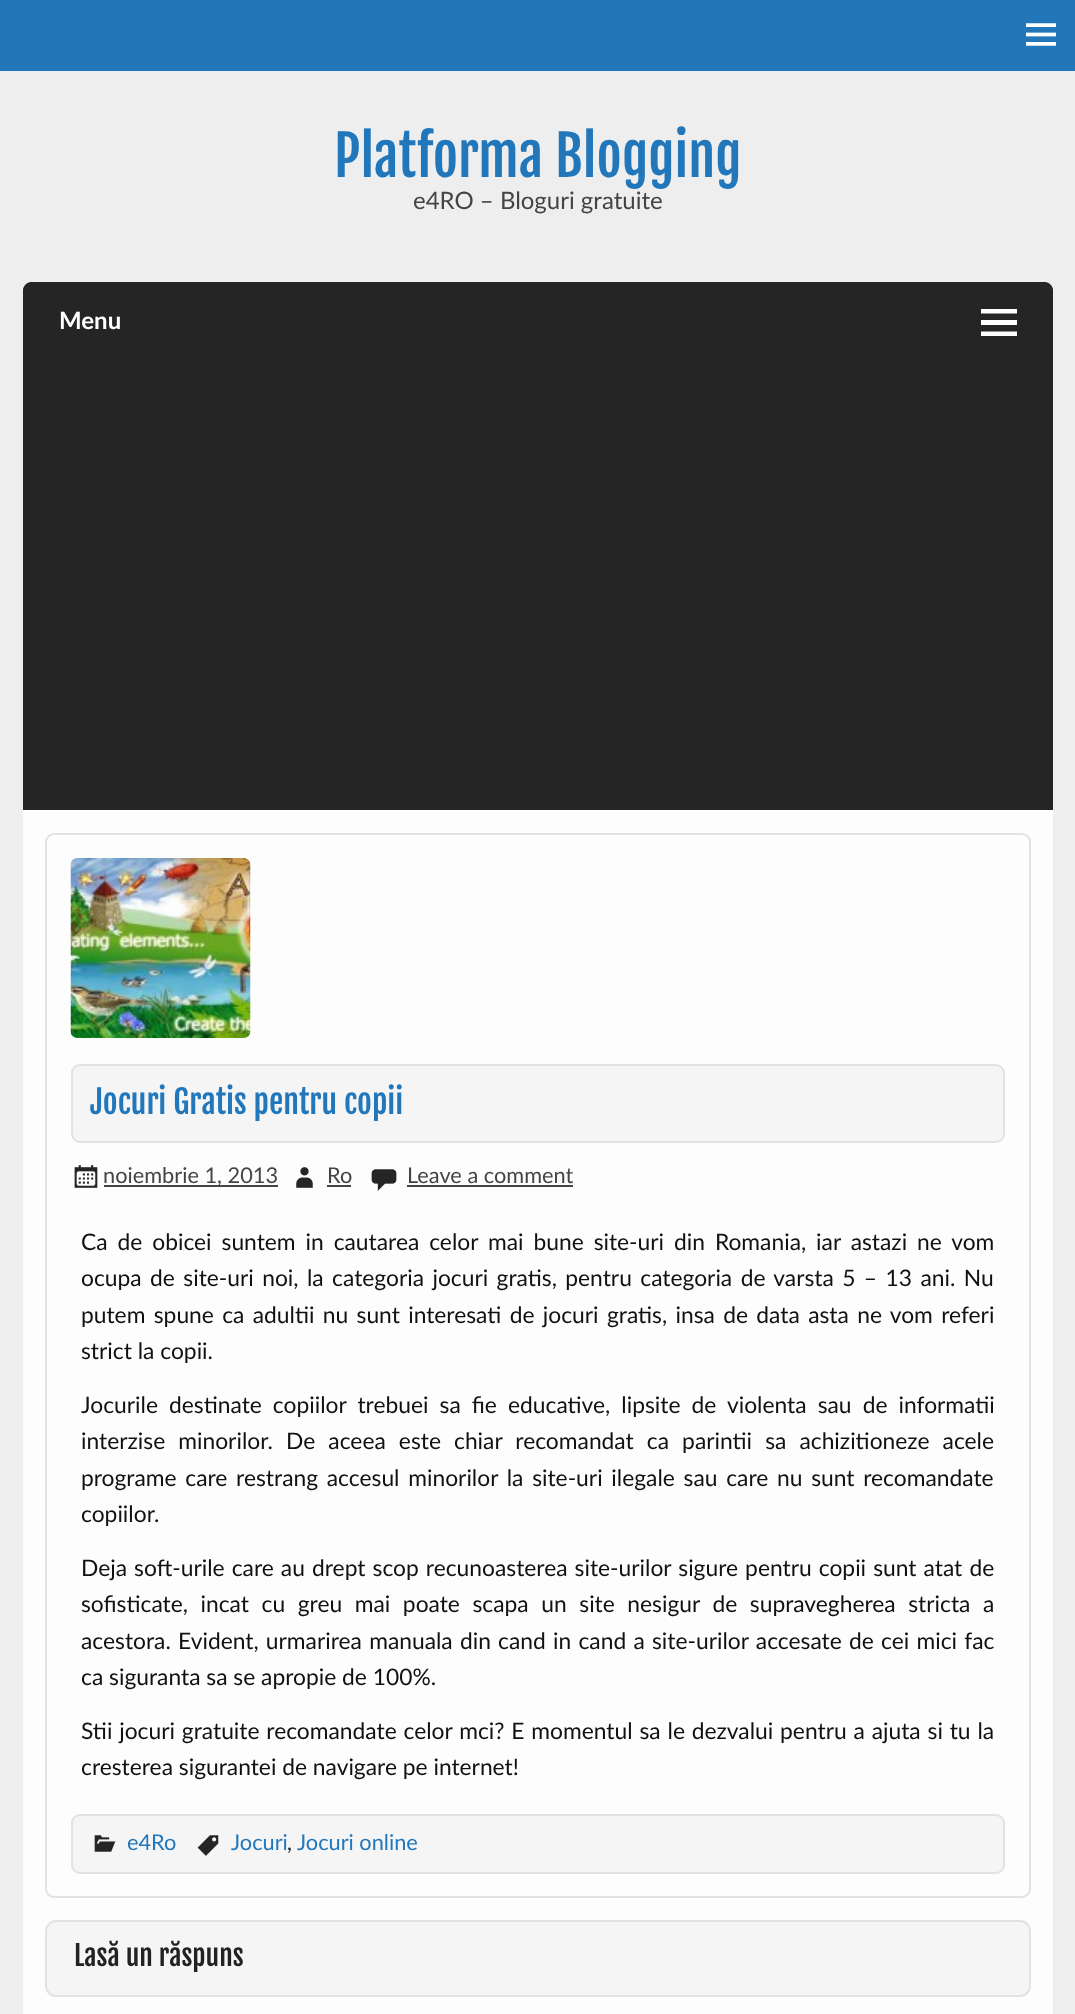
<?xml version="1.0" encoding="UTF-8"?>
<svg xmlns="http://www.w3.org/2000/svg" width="1075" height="2014">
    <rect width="100%" height="100%" fill="#EEEEEE"/>
    <rect x="0" y="0" width="1075" height="71" fill="#2277BB"/>
    <image x="1026" y="23" width="30" height="23" href="img_01.png"/>
    <text x="334" y="177" font-family="Fjalla One" font-size="54.75" fill="#2277BB">Platforma Blogging</text>
    <text x="413" y="209" font-family="Lato" font-size="24" fill="#444444">e4RO – Bloguri gratuite</text>
    <path d="M 32 282 H 1044 C 1049 282 1053 286 1053 291 V 810 H 23 V 291 C 23 286 27 282 32 282 Z" fill="#252525"/>
    <path d="M 32 282 H 1044 C 1049 282 1053 286 1053 291 V 360 H 23 V 291 C 23 286 27 282 32 282 Z" fill="#252525"/>
    <text x="59" y="329" font-family="Lato" font-size="24" font-weight="700" fill="#FFFFFF">Menu</text>
    <path d="M 981 336 V 331.5 H 1017 V 336 Z M 981 309 H 1017 V 313.5 H 981 Z M 981 325 V 320 H 1017 V 325 Z" fill="#FFFFFF"/>
    <rect x="23" y="810" width="1030" height="1204" fill="#FDFDFD"/>
    <rect x="46" y="834" width="984" height="1063" rx="8" fill="none" stroke="#E2E2E2" stroke-width="2"/>
    <image x="70" y="858" width="181" height="180" href="img_02.png"/>
    <rect x="72" y="1065" width="932" height="77" rx="8" fill="#F5F5F5" stroke="#E2E2E2" stroke-width="2"/>
    <text x="90" y="1114" font-family="Fjalla One" font-size="32" fill="#2277BB">Jocuri Gratis pentru copii</text>
    <image x="74" y="1165" width="24" height="23" href="img_03.png"/>
    <rect x="104" y="1185" width="174" height="2" fill="#444444"/>
    <text x="103" y="1183" font-family="Lato" font-size="21.75" fill="#444444">noiembrie 1, 2013</text>
    <image x="296" y="1167" width="17" height="21" href="img_04.png"/>
    <text x="327" y="1183" font-family="Lato" font-size="21.75" fill="#444444">Ro</text>
    <rect x="327" y="1185" width="24" height="2" fill="#444444"/>
    <image x="371" y="1169" width="26" height="22" href="img_05.png"/>
    <text x="407" y="1183" font-family="Lato" font-size="21.75" fill="#444444">Leave a comment</text>
    <rect x="407" y="1185" width="166" height="2" fill="#444444"/>
    <text font-family="Lato" font-size="22.8" fill="#111111">
        <tspan x="81" y="1250" word-spacing="4.1">Ca de obicei suntem in cautarea celor mai bune site-uri din Romania, iar astazi ne vom</tspan>
        <tspan x="81" y="1286" word-spacing="2.6">ocupa de site-uri noi, la categoria jocuri gratis, pentru categoria de varsta 5 – 13 ani. Nu</tspan>
        <tspan x="81" y="1323" word-spacing="2.5">putem spune ca adultii nu sunt interesati de jocuri gratis, insa de data asta ne vom referi</tspan>
        <tspan x="81" y="1359">strict la copii.</tspan>
    </text>
    <text font-family="Lato" font-size="22.8" fill="#111111">
        <tspan x="81" y="1413" word-spacing="5.25">Jocurile destinate copiilor trebuei sa fie educative, lipsite de violenta sau de informatii</tspan>
        <tspan x="81" y="1449" word-spacing="7.25">interzise minorilor. De aceea este chiar recomandat ca parintii sa achizitioneze acele</tspan>
        <tspan x="81" y="1486" word-spacing="2.9">programe care restrang accesul minorilor la site-uri ilegale sau care nu sunt recomandate</tspan>
        <tspan x="81" y="1522">copiilor.</tspan>
    </text>
    <text font-family="Lato" font-size="22.8" fill="#111111">
        <tspan x="81" y="1576" word-spacing="1.25">Deja soft-urile care au drept scop recunoasterea site-urilor sigure pentru copii sunt atat de</tspan>
        <tspan x="81" y="1612" word-spacing="6.75">sofisticate, incat cu greu mai poate scapa un site nesigur de supravegherea stricta a</tspan>
        <tspan x="81" y="1649" word-spacing="1.4">acestora. Evident, urmarirea manuala din cand in cand a site-urilor accesate de cei mici fac</tspan>
        <tspan x="81" y="1685">ca siguranta sa se apropie de 100%.</tspan>
    </text>
    <text font-family="Lato" font-size="22.8" fill="#111111">
        <tspan x="81" y="1739" word-spacing="1">Stii jocuri gratuite recomandate celor mci? E momentul sa le dezvalui pentru a ajuta si tu la</tspan>
        <tspan x="81" y="1775">cresterea sigurantei de navigare pe internet!</tspan>
    </text>
    <rect x="72" y="1815" width="932" height="58" rx="8" fill="#F5F5F5" stroke="#E2E2E2" stroke-width="2"/>
    <image x="94" y="1835" width="22" height="17" href="img_06.png"/>
    <text x="127" y="1850" font-family="Lato" font-size="21.75" fill="#2277BB">e4Ro</text>
    <image x="197" y="1835" width="22" height="21" href="img_07.png"/>
    <text x="231" y="1850" font-family="Lato" font-size="21.75" fill="#2277BB">Jocuri</text>
    <text x="287" y="1850" font-family="Lato" font-size="21.75" fill="#222222">,</text>
    <text x="297" y="1850" font-family="Lato" font-size="21.75" fill="#2277BB">Jocuri online</text>
    <rect x="46" y="1921" width="984" height="75" rx="10" fill="#F5F5F5" stroke="#E2E2E2" stroke-width="2"/>
    <text x="74" y="1966" font-family="Fjalla One" font-size="27.5" fill="#222222">Lasă un răspuns</text>
</svg>
